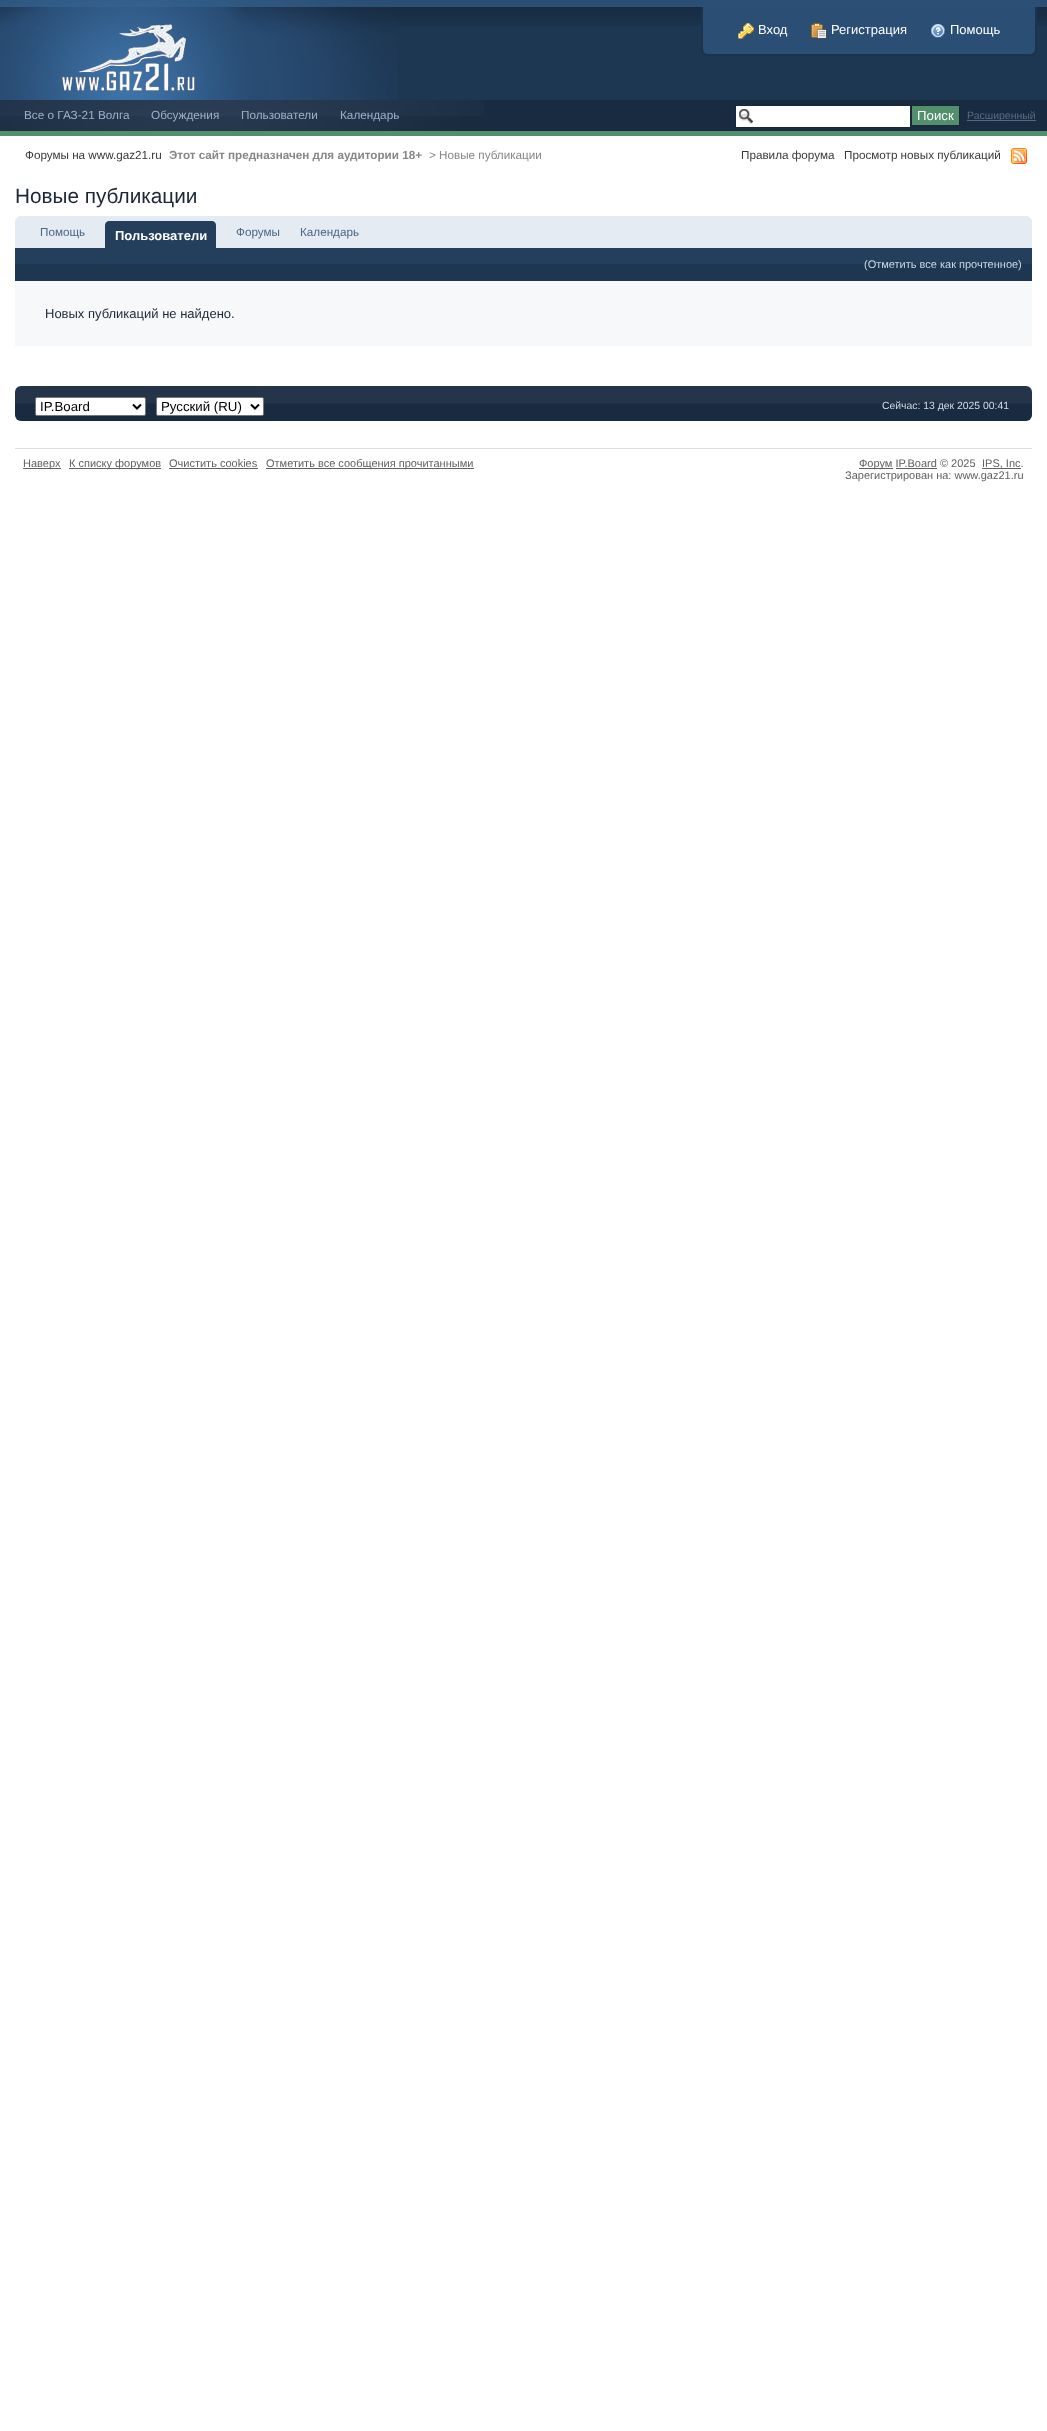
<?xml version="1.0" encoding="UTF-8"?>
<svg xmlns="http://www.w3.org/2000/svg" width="1047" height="2431">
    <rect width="100%" height="100%" fill="#FFFFFF"/>
    <rect x="398" y="26" width="649" height="74" fill="#1D3652"/>
    <image x="398" y="0" width="649" height="26" href="img_01.png"/>
    <image x="0" y="0" width="398" height="100" href="img_02.png"/>
    <path d="M 703 7 H 1035 V 50 C 1035 52 1033 54 1031 54 H 707 C 705 54 703 52 703 50 Z" fill="#2B4F74"/>
    <path d="M 701 7 H 1037 V 50 C 1037 53 1034 56 1031 56 H 707 C 704 56 701 53 701 50 Z M 703 7 H 1035 V 50 C 1035 52 1033 54 1031 54 H 707 C 705 54 703 52 703 50 Z" fill="#1C334E" fill-rule="evenodd"/>
    <image x="738" y="23" width="16" height="16" href="img_03.png"/>
    <text x="758" y="34" font-family="Liberation Sans" font-size="13" fill="#FFFFFF">Вход</text>
    <image x="811" y="23" width="16" height="16" href="img_04.png"/>
    <text x="831" y="34" font-family="Liberation Sans" font-size="13" fill="#FFFFFF">Регистрация</text>
    <image x="931" y="24" width="14" height="14" href="img_05.png"/>
    <text x="950" y="34" font-family="Liberation Sans" font-size="13" fill="#FFFFFF">Помощь</text>
    <rect x="484" y="100" width="563" height="31" fill="#192B40"/>
    <image x="0" y="100" width="484" height="31" href="img_06.png"/>
    <rect x="0" y="131" width="1047" height="5" fill="#528F6C"/>
    <text x="24" y="119" font-family="Liberation Sans" font-size="11.75" fill="#9BB2C8">Все о ГАЗ-21 Волга</text>
    <text x="151" y="119" font-family="Liberation Sans" font-size="11.75" fill="#9BB2C8">Обсуждения</text>
    <text x="241" y="119" font-family="Liberation Sans" font-size="11.75" fill="#9BB2C8">Пользователи</text>
    <text x="340" y="119" font-family="Liberation Sans" font-size="11.75" fill="#9BB2C8">Календарь</text>
    <rect x="736" y="106" width="174" height="21" fill="#FFFFFF"/>
    <image x="739" y="109" width="14" height="15" href="img_07.png"/>
    <rect x="735.5" y="105.5" width="175" height="22" fill="none" stroke="#1A2735"/>
    <rect x="911.5" y="105.5" width="48" height="20" fill="#528F6C" stroke="#1A2735"/>
    <text x="917" y="120" font-family="Liberation Sans" font-size="13.25" fill="#FFFFFF">Поиск</text>
    <rect x="967" y="120" width="69" height="1" fill="#556B85"/>
    <text x="967" y="119" font-family="Liberation Sans" font-size="10.5" fill="#556B85">Расширенный</text>
    <text x="25" y="159" font-family="Liberation Sans" font-size="11.7" fill="#393939">Форумы на www.gaz21.ru</text>
    <text x="169" y="159" font-family="Liberation Sans" font-size="11.7" font-weight="700" fill="#878787">Этот сайт предназначен для аудитории 18+</text>
    <text x="429" y="159" font-family="Liberation Sans" font-size="11.7" fill="#878787">&gt; Новые публикации</text>
    <text x="741" y="159" font-family="Liberation Sans" font-size="11.7" fill="#393939">Правила форума</text>
    <text x="844" y="159" font-family="Liberation Sans" font-size="11.7" fill="#393939">Просмотр новых публикаций</text>
    <image x="1011" y="148" width="16" height="16" href="img_08.png"/>
    <text x="15" y="203" font-family="Liberation Sans" font-size="20.75" fill="#1C2837">Новые публикации</text>
    <path d="M 21 216 H 1026 C 1029.5 216 1032 218.5 1032 222 V 248 H 15 V 222 C 15 218.5 17.5 216 21 216 Z" fill="#E4EBF2"/>
    <text x="40" y="236" font-family="Liberation Sans" font-size="11.7" fill="#4A6784">Помощь</text>
    <rect x="15" y="248" width="1017" height="16" fill="#243F5C"/>
    <path d="M 109 221 H 212 C 214 221 216 223 216 225 V 250 H 105 V 225 C 105 223 107 221 109 221 Z" fill="#243F5C"/>
    <text x="115" y="240" font-family="Liberation Sans" font-size="13" font-weight="700" fill="#FFFFFF">Пользователи</text>
    <text x="236" y="236" font-family="Liberation Sans" font-size="11.7" fill="#4A6784">Форумы</text>
    <text x="300" y="236" font-family="Liberation Sans" font-size="11.7" fill="#4A6784">Календарь</text>
    <rect x="15" y="264" width="1017" height="17" fill="#1D3652"/>
    <text x="864" y="268" font-family="Liberation Sans" font-size="11" fill="#CFD9E4">(Отметить все как прочтенное)</text>
    <rect x="15" y="281" width="1017" height="65" fill="#F6F8FA"/>
    <text x="45" y="318" font-family="Liberation Sans" font-size="13" fill="#1C2837">Новых публикаций не найдено.</text>
    <rect x="15" y="386" width="1017" height="35" rx="6" fill="#192B40"/>
    <image x="15" y="386" width="1017" height="18" href="img_09.png"/>
    <rect x="35.5" y="397.5" width="110" height="18" rx="1.5" fill="#FFFFFF" stroke="#767676"/>
    <path d="M 133 404.5 L 137 408.5 L 141 404.5" fill="none" stroke="#000000" stroke-width="2"/>
    <text x="40" y="411" font-family="Liberation Sans" font-size="13.25" fill="#000000">IP.Board</text>
    <rect x="156.5" y="397.5" width="107" height="18" rx="1.5" fill="#FFFFFF" stroke="#767676"/>
    <path d="M 251 404.5 L 255 408.5 L 259 404.5" fill="none" stroke="#000000" stroke-width="2"/>
    <text x="161" y="411" font-family="Liberation Sans" font-size="13.25" fill="#000000">Русский (RU)</text>
    <text x="882" y="409" font-family="Liberation Sans" font-size="10.4" fill="#D5DDE5">Сейчас: 13 дек 2025 00:41</text>
    <rect x="15" y="448" width="1017" height="1" fill="#DEDEDE"/>
    <rect x="23" y="468" width="38" height="1" fill="#606060"/>
    <text x="23" y="467" font-family="Liberation Sans" font-size="11" fill="#606060">Наверх</text>
    <rect x="69" y="468" width="92" height="1" fill="#606060"/>
    <text x="69" y="467" font-family="Liberation Sans" font-size="11" fill="#606060">К списку форумов</text>
    <text x="169" y="467" font-family="Liberation Sans" font-size="11" fill="#606060">Очистить cookies</text>
    <rect x="169" y="468" width="89" height="1" fill="#606060"/>
    <rect x="266" y="468" width="208" height="1" fill="#606060"/>
    <text x="266" y="467" font-family="Liberation Sans" font-size="11" fill="#606060">Отметить все сообщения прочитанными</text>
    <rect x="859" y="468" width="34" height="1" fill="#606060"/>
    <text x="859" y="467" font-family="Liberation Sans" font-size="11" fill="#606060">Форум IP.Board © 2025</text>
    <rect x="982" y="468" width="39" height="1" fill="#606060"/>
    <text x="982" y="467" font-family="Liberation Sans" font-size="11" fill="#606060">IPS, Inc.</text>
    <rect x="896" y="468" width="41" height="1" fill="#606060"/>
    <text x="845" y="479" font-family="Liberation Sans" font-size="11" fill="#606060">Зарегистрирован на: www.gaz21.ru</text>
</svg>
